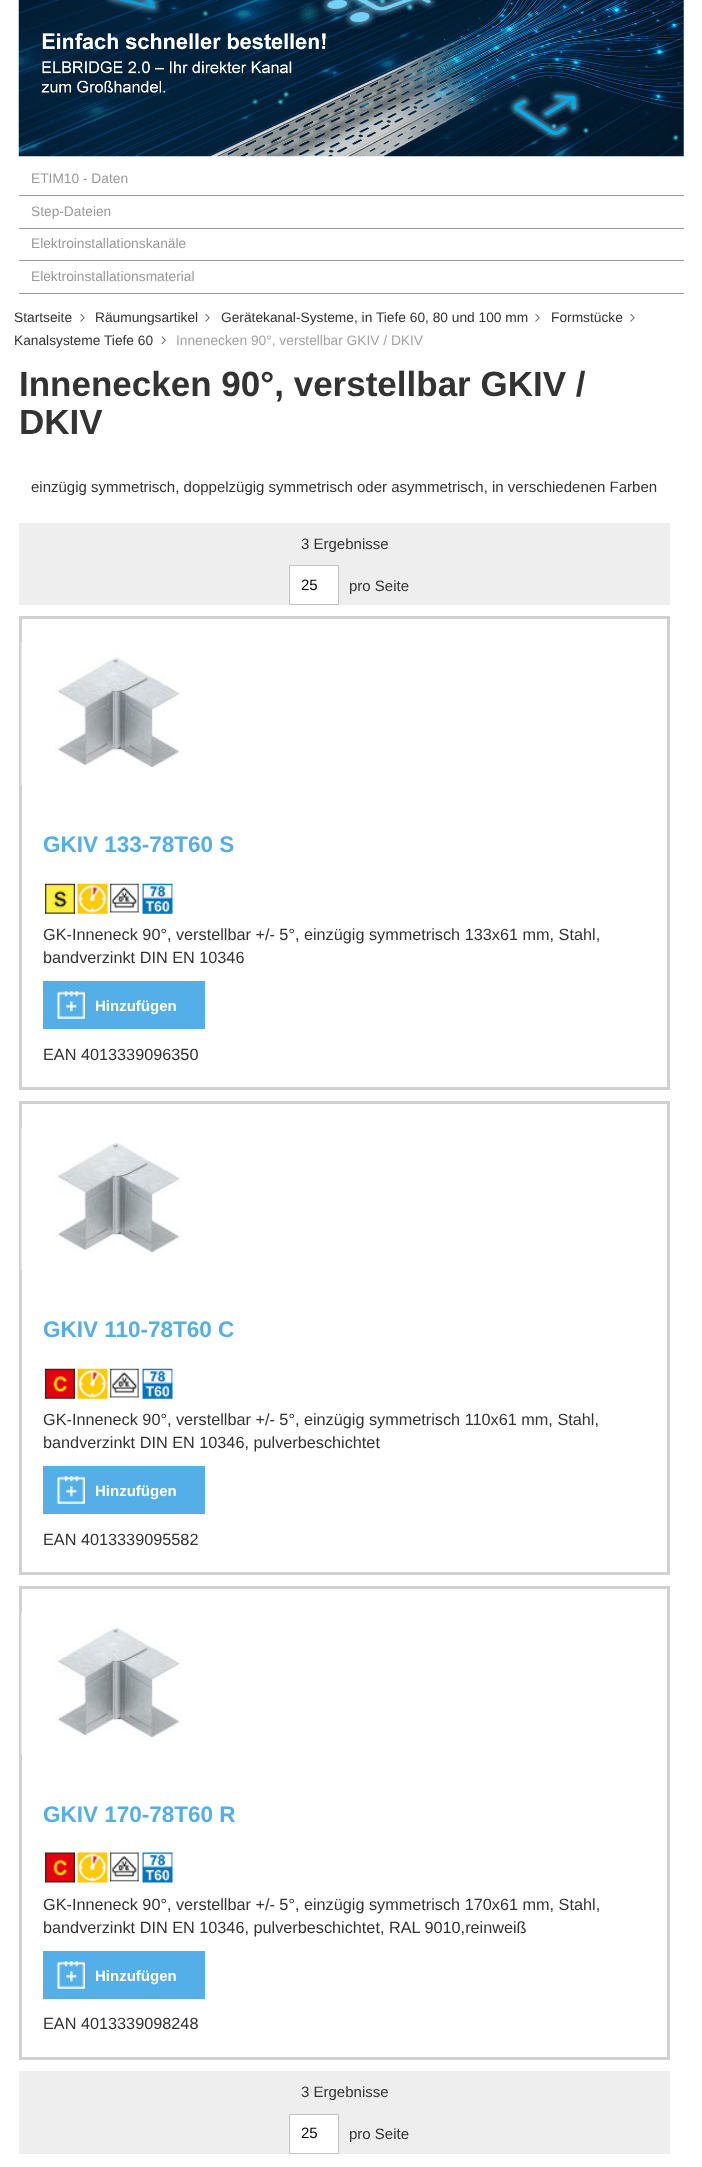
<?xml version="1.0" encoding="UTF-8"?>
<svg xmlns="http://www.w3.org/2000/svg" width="702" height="2167">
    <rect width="100%" height="100%" fill="#FFFFFF"/>
    <image x="18" y="0" width="666" height="157" href="img_01.png"/>
    <rect x="19" y="195" width="665" height="1" fill="#9C9A9A"/>
    <text x="31" y="183" font-family="Liberation Sans" font-size="13.75" fill="#9C9A9A">ETIM10 - Daten</text>
    <rect x="19" y="228" width="665" height="1" fill="#9C9A9A"/>
    <text x="31" y="216" font-family="Liberation Sans" font-size="13.75" fill="#9C9A9A">Step-Dateien</text>
    <rect x="19" y="260" width="665" height="1" fill="#9C9A9A"/>
    <text x="31" y="248" font-family="Liberation Sans" font-size="13.75" fill="#9C9A9A">Elektroinstallationskanäle</text>
    <rect x="19" y="293" width="665" height="1" fill="#9C9A9A"/>
    <text x="31" y="281" font-family="Liberation Sans" font-size="13.75" fill="#9C9A9A">Elektroinstallationsmaterial</text>
    <text x="14" y="322" font-family="Liberation Sans" font-size="13.75" fill="#333333">Startseite</text>
    <image x="80" y="313" width="5" height="9" href="img_02.png"/>
    <text x="95" y="322" font-family="Liberation Sans" font-size="13.75" fill="#333333">Räumungsartikel</text>
    <image x="205" y="313" width="5" height="9" href="img_02.png"/>
    <text x="221" y="322" font-family="Liberation Sans" font-size="13.75" fill="#333333">Gerätekanal-Systeme, in Tiefe 60, 80 und 100 mm</text>
    <image x="535" y="313" width="5" height="9" href="img_02.png"/>
    <text x="551" y="322" font-family="Liberation Sans" font-size="13.75" fill="#333333">Formstücke</text>
    <image x="630" y="313" width="5" height="9" href="img_02.png"/>
    <text x="14" y="345" font-family="Liberation Sans" font-size="13.75" fill="#333333">Kanalsysteme Tiefe 60</text>
    <image x="161" y="336" width="5" height="9" href="img_03.png"/>
    <text x="176" y="345" font-family="Liberation Sans" font-size="13.75" fill="#A3A3A3">Innenecken 90°, verstellbar GKIV / DKIV</text>
    <text font-family="Liberation Sans" font-size="35" font-weight="700" fill="#333333">
        <tspan x="19" y="396">Innenecken 90°, verstellbar GKIV /</tspan>
        <tspan x="19" y="434">DKIV</tspan>
    </text>
    <text x="31" y="492" font-family="Liberation Sans" font-size="15" fill="#333333">einzügig symmetrisch, doppelzügig symmetrisch oder asymmetrisch, in verschiedenen Farben</text>
    <rect x="19" y="523" width="651" height="82" fill="#EEEEEE"/>
    <text x="301" y="549" font-family="Liberation Sans" font-size="15" fill="#333333">3 Ergebnisse</text>
    <rect x="289.5" y="565.5" width="49" height="39" rx="0.5" fill="#FFFFFF" stroke="#C2C2C2"/>
    <text x="301" y="590" font-family="Liberation Sans" font-size="15" fill="#000000">25</text>
    <text x="349" y="591" font-family="Liberation Sans" font-size="15" fill="#333333">pro Seite</text>
    <rect x="20.5" y="617.5" width="648" height="471" fill="none" stroke="#D1D1D1" stroke-width="3"/>
    <image x="21" y="642" width="161" height="143" href="img_04.png"/>
    <text x="43" y="852" font-family="Liberation Sans" font-size="22.5" font-weight="700" fill="#54AFE8">GKIV 133-78T60 S</text>
    <image x="45" y="883" width="30" height="31" href="img_05.png"/>
    <image x="77" y="883" width="31" height="31" href="img_06.png"/>
    <image x="110" y="883" width="29" height="30" href="img_07.png"/>
    <image x="142" y="883" width="31" height="31" href="img_08.png"/>
    <text font-family="Liberation Sans" font-size="16.25" fill="#333333">
        <tspan x="43" y="940">GK-Inneneck 90°, verstellbar +/- 5°, einzügig symmetrisch 133x61 mm, Stahl,</tspan>
        <tspan x="43" y="963">bandverzinkt DIN EN 10346</tspan>
    </text>
    <rect x="43" y="981" width="162" height="48" fill="#54AFE8"/>
    <image x="57" y="991" width="28" height="28" href="img_09.png"/>
    <text x="95" y="1011" font-family="Liberation Sans" font-size="15" font-weight="700" fill="#FFFFFF">Hinzufügen</text>
    <text x="43" y="1060" font-family="Liberation Sans" font-size="16.25" fill="#333333">EAN 4013339096350</text>
    <rect x="20.5" y="1102.5" width="648" height="471" fill="none" stroke="#D1D1D1" stroke-width="3"/>
    <image x="21" y="1127" width="161" height="143" href="img_10.png"/>
    <text x="43" y="1337" font-family="Liberation Sans" font-size="22.5" font-weight="700" fill="#54AFE8">GKIV 110-78T60 C</text>
    <image x="45" y="1368" width="30" height="31" href="img_11.png"/>
    <image x="77" y="1368" width="31" height="31" href="img_06.png"/>
    <image x="110" y="1368" width="29" height="30" href="img_07.png"/>
    <image x="142" y="1368" width="31" height="31" href="img_08.png"/>
    <text font-family="Liberation Sans" font-size="16.25" fill="#333333">
        <tspan x="43" y="1425">GK-Inneneck 90°, verstellbar +/- 5°, einzügig symmetrisch 110x61 mm, Stahl,</tspan>
        <tspan x="43" y="1448">bandverzinkt DIN EN 10346, pulverbeschichtet</tspan>
    </text>
    <rect x="43" y="1466" width="162" height="48" fill="#54AFE8"/>
    <image x="57" y="1476" width="28" height="28" href="img_09.png"/>
    <text x="95" y="1496" font-family="Liberation Sans" font-size="15" font-weight="700" fill="#FFFFFF">Hinzufügen</text>
    <text x="43" y="1545" font-family="Liberation Sans" font-size="16.25" fill="#333333">EAN 4013339095582</text>
    <rect x="20.5" y="1587.5" width="648" height="471" fill="none" stroke="#D1D1D1" stroke-width="3"/>
    <image x="21" y="1612" width="161" height="143" href="img_12.png"/>
    <text x="43" y="1822" font-family="Liberation Sans" font-size="22.5" font-weight="700" fill="#54AFE8">GKIV 170-78T60 R</text>
    <image x="45" y="1852" width="30" height="31" href="img_13.png"/>
    <image x="77" y="1852" width="31" height="31" href="img_14.png"/>
    <image x="110" y="1852" width="29" height="30" href="img_15.png"/>
    <image x="142" y="1852" width="31" height="31" href="img_16.png"/>
    <text font-family="Liberation Sans" font-size="16.25" fill="#333333">
        <tspan x="43" y="1910">GK-Inneneck 90°, verstellbar +/- 5°, einzügig symmetrisch 170x61 mm, Stahl,</tspan>
        <tspan x="43" y="1933">bandverzinkt DIN EN 10346, pulverbeschichtet, RAL 9010,reinweiß</tspan>
    </text>
    <rect x="43" y="1951" width="162" height="48" fill="#54AFE8"/>
    <image x="57" y="1961" width="28" height="28" href="img_09.png"/>
    <text x="95" y="1981" font-family="Liberation Sans" font-size="15" font-weight="700" fill="#FFFFFF">Hinzufügen</text>
    <text x="43" y="2029" font-family="Liberation Sans" font-size="16.25" fill="#333333">EAN 4013339098248</text>
    <rect x="19" y="2071" width="651" height="83" fill="#EEEEEE"/>
    <text x="301" y="2097" font-family="Liberation Sans" font-size="15" fill="#333333">3 Ergebnisse</text>
    <rect x="289.5" y="2114.5" width="49" height="39" rx="0.5" fill="#FFFFFF" stroke="#C2C2C2"/>
    <text x="301" y="2138" font-family="Liberation Sans" font-size="15" fill="#000000">25</text>
    <text x="349" y="2139" font-family="Liberation Sans" font-size="15" fill="#333333">pro Seite</text>
</svg>
